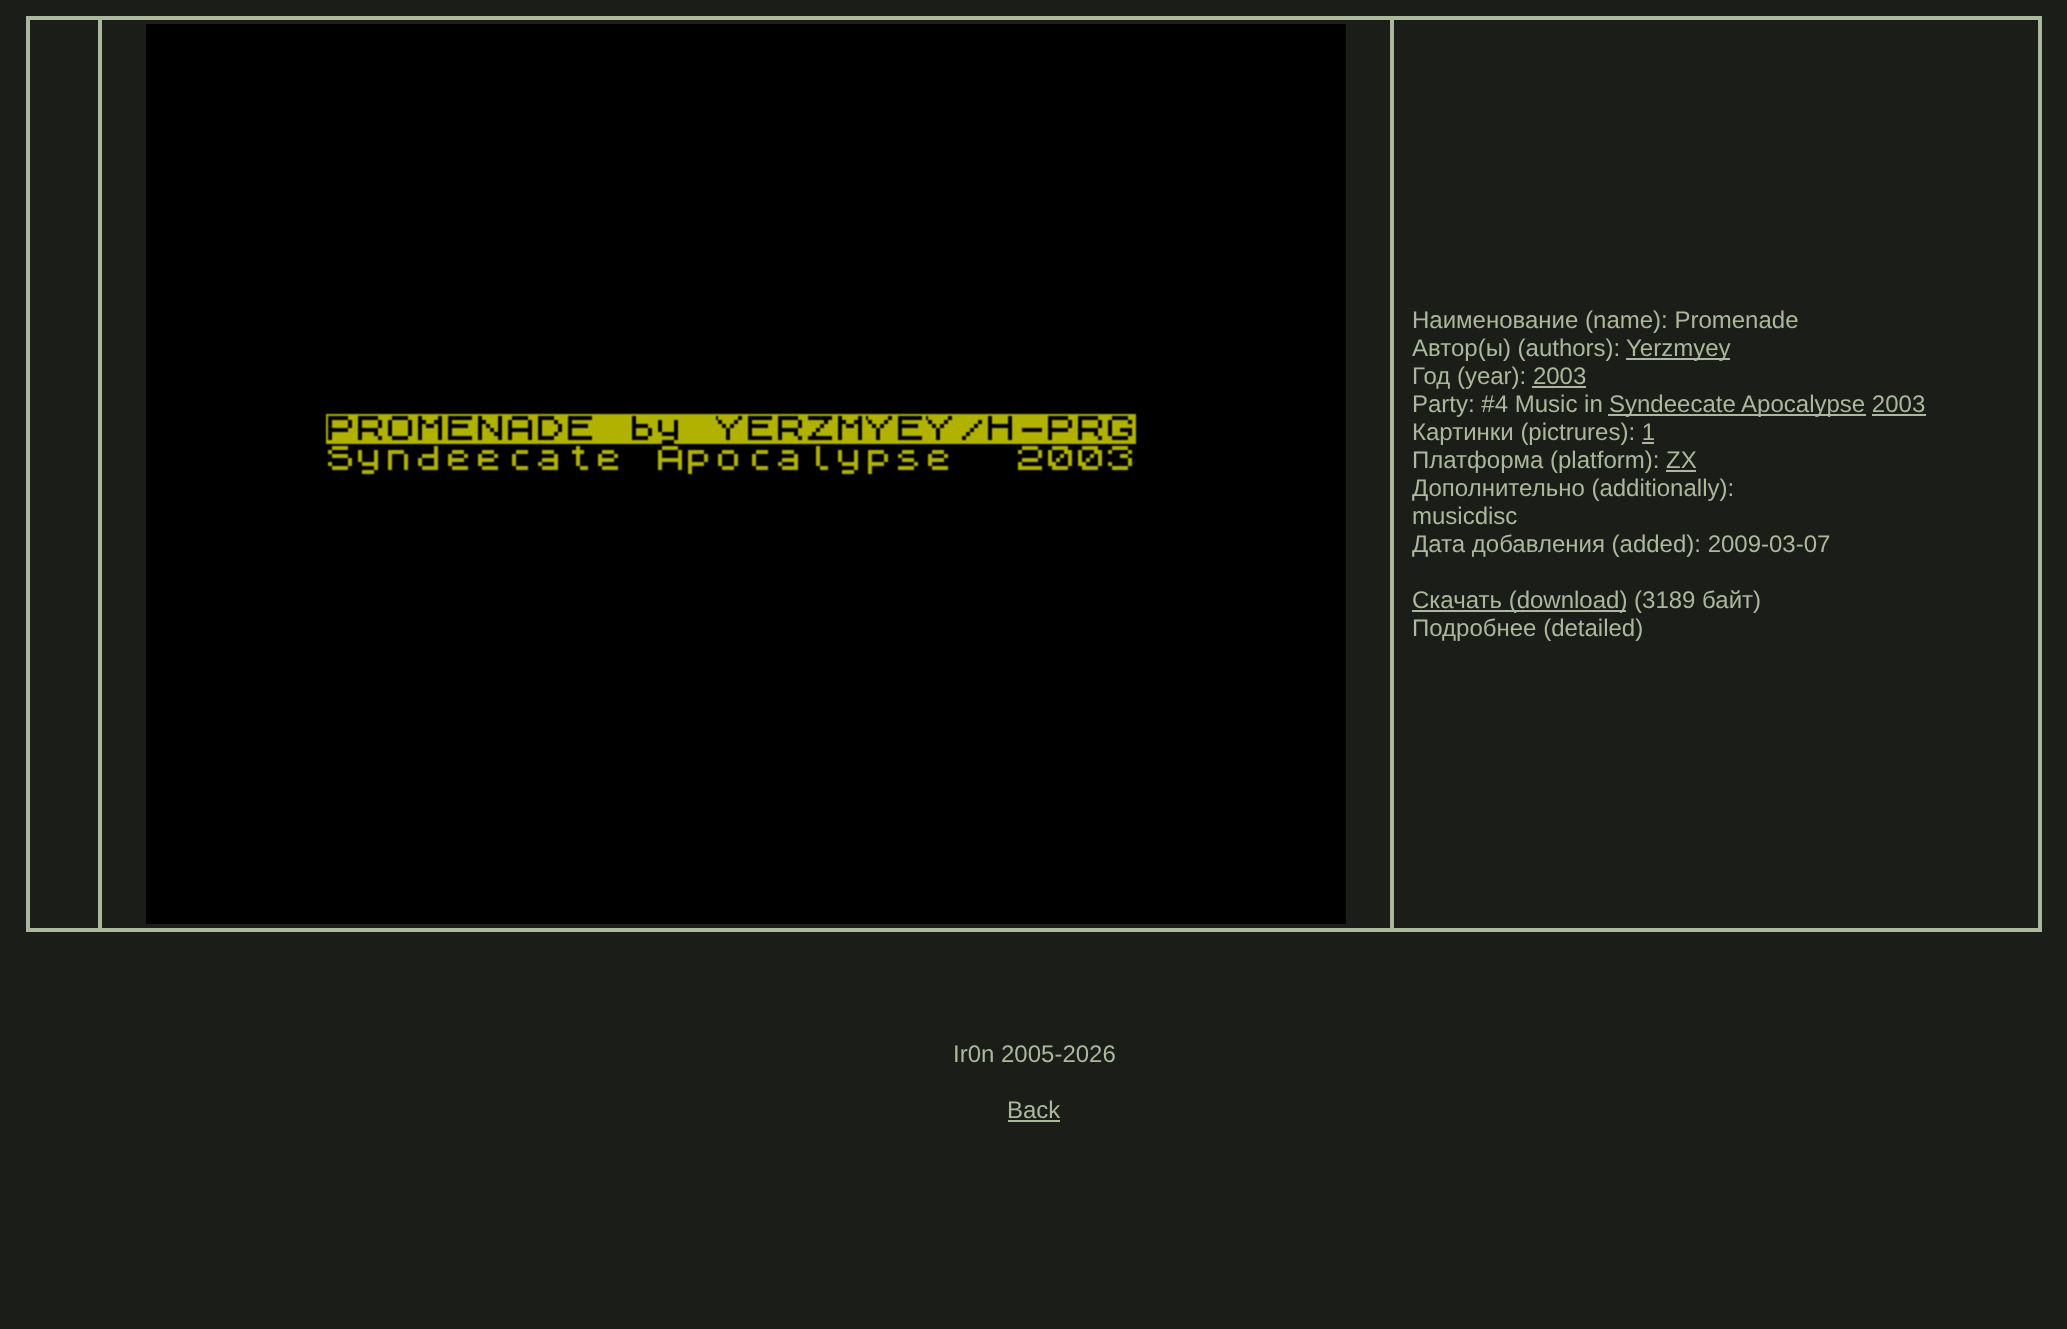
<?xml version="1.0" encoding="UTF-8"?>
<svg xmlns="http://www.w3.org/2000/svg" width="2067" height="1329">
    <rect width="100%" height="100%" fill="#1B1E18"/>
    <rect x="27" y="17" width="2014" height="914" fill="none" stroke="#AAB89C" stroke-width="2"/>
    <rect x="29" y="19" width="70" height="910" fill="none" stroke="#AAB89C" stroke-width="2"/>
    <rect x="101" y="19" width="1290" height="910" fill="none" stroke="#AAB89C" stroke-width="2"/>
    <image x="146" y="24" width="1200" height="900" href="img_01.png"/>
    <rect x="1393" y="19" width="646" height="910" fill="none" stroke="#AAB89C" stroke-width="2"/>
    <text font-family="Liberation Sans" font-size="24" fill="#AAB89C">
        <tspan x="1412" y="328">Наименование (name): Promenade</tspan>
        <tspan x="1412" y="356">Автор(ы) (authors):</tspan>
    </text>
    <rect x="1626" y="358" width="104" height="2" fill="#AAB89C"/>
    <text x="1626" y="356" font-family="Liberation Sans" font-size="24" fill="#AAB89C">Yerzmyey</text>
    <text x="1412" y="384" font-family="Liberation Sans" font-size="24" fill="#AAB89C">Год (year): 2003</text>
    <rect x="1532" y="386" width="54" height="2" fill="#AAB89C"/>
    <text x="1412" y="412" font-family="Liberation Sans" font-size="24" fill="#AAB89C">Party: #4 Music in</text>
    <rect x="1608" y="414" width="258" height="2" fill="#AAB89C"/>
    <text x="1609" y="412" font-family="Liberation Sans" font-size="24" fill="#AAB89C">Syndeecate Apocalypse 2003</text>
    <rect x="1872" y="414" width="54" height="2" fill="#AAB89C"/>
    <text x="1412" y="440" font-family="Liberation Sans" font-size="24" fill="#AAB89C">Картинки (pictrures): 1</text>
    <rect x="1642" y="442" width="12" height="2" fill="#AAB89C"/>
    <text x="1412" y="468" font-family="Liberation Sans" font-size="24" fill="#AAB89C">Платформа (platform): ZX</text>
    <rect x="1666" y="470" width="30" height="2" fill="#AAB89C"/>
    <text font-family="Liberation Sans" font-size="24" fill="#AAB89C">
        <tspan x="1412" y="496">Дополнительно (additionally):</tspan>
        <tspan x="1412" y="524">musicdisc</tspan>
        <tspan x="1412" y="552">Дата добавления (added): 2009-03-07</tspan>
    </text>
    <rect x="1412" y="610" width="214" height="2" fill="#AAB89C"/>
    <text font-family="Liberation Sans" font-size="24" fill="#AAB89C">
        <tspan x="1412" y="608">Скачать (download) (3189 байт)</tspan>
        <tspan x="1412" y="636">Подробнее (detailed)</tspan>
    </text>
    <text x="953" y="1062" font-family="Liberation Sans" font-size="24" fill="#AAB89C">Ir0n 2005-2026</text>
    <text x="1007" y="1118" font-family="Liberation Sans" font-size="24" fill="#AAB89C">Back</text>
    <rect x="1008" y="1120" width="52" height="2" fill="#AAB89C"/>
</svg>
